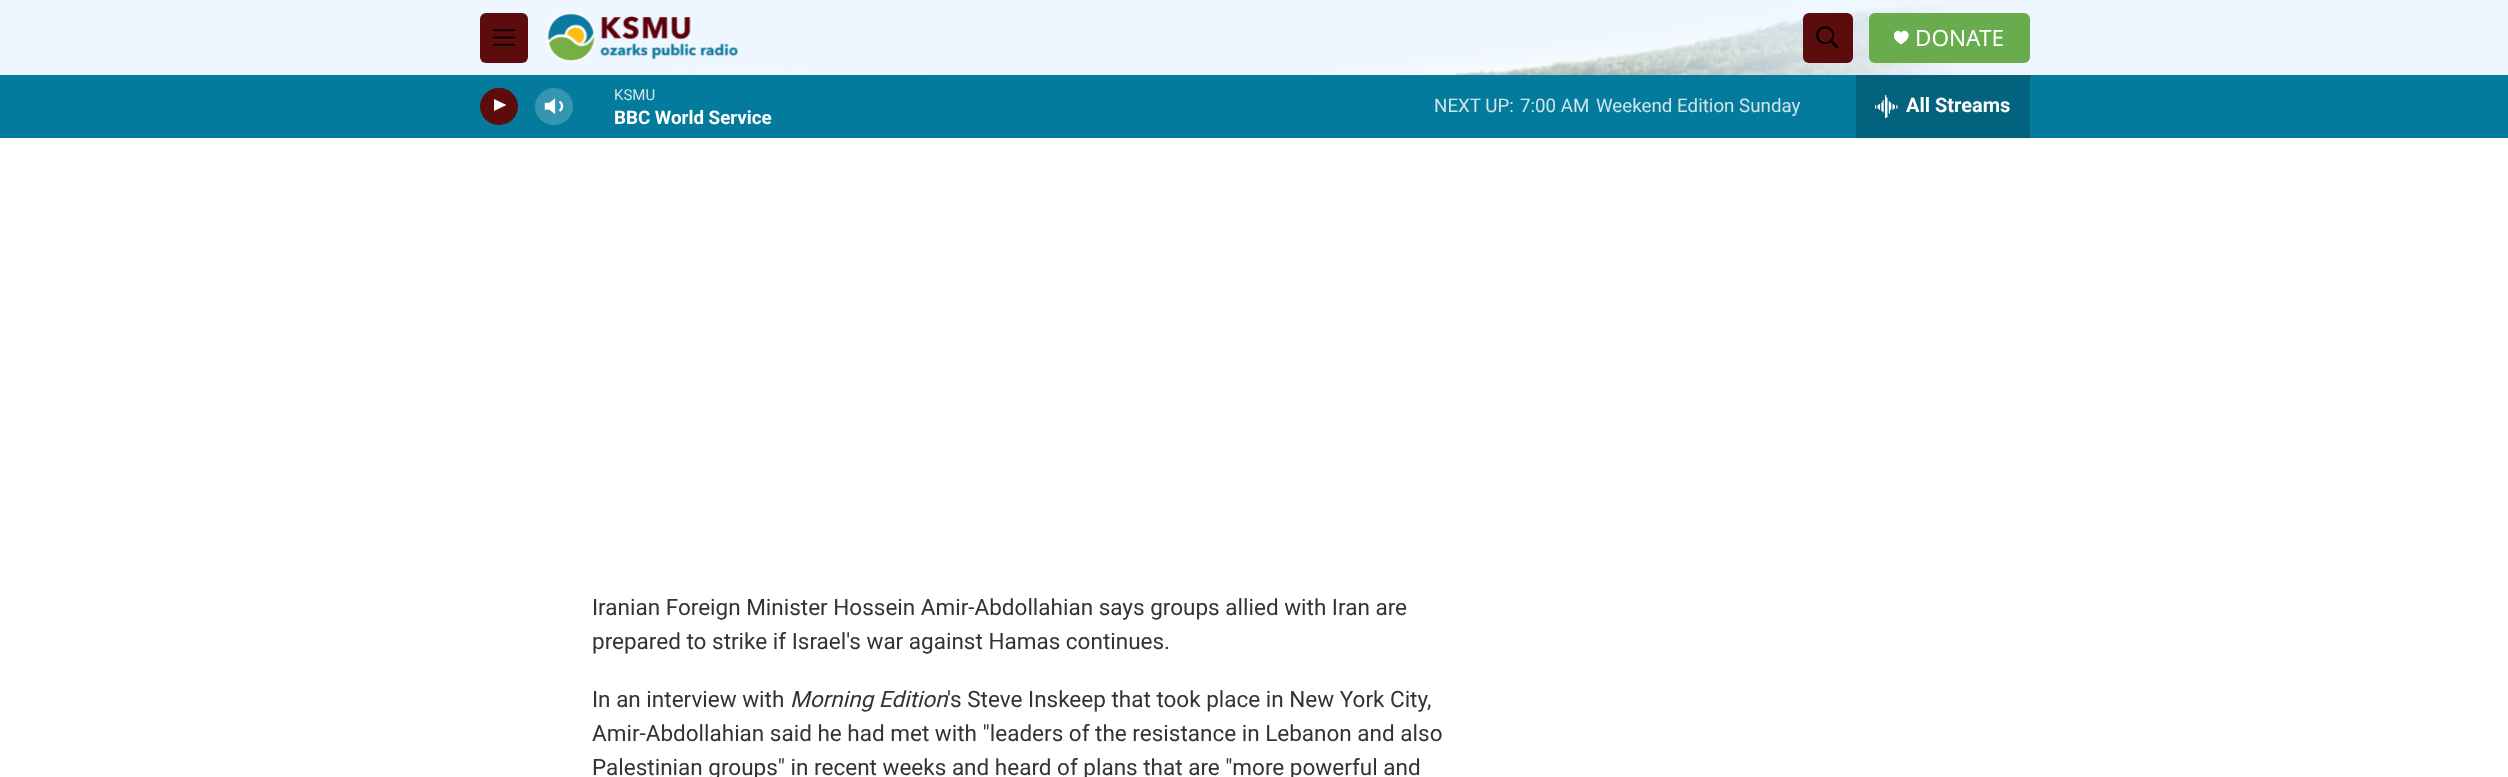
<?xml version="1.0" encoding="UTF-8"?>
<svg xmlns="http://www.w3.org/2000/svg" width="2508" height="777">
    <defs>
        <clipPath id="clip1"><rect x="1894" y="30" width="15" height="15"/></clipPath>
    </defs>
    <rect width="100%" height="100%" fill="#FFFFFF"/>
    <rect x="0" y="138" width="2508" height="1" fill="#F5F5F5"/>
    <image x="0" y="0" width="2508" height="75" href="img_01.png"/>
    <rect x="480" y="13" width="48" height="50" rx="6" fill="#5C0C0C"/>
    <image x="493" y="29" width="22" height="17" href="img_02.png"/>
    <image x="546" y="12" width="192" height="50" href="img_03.png"/>
    <rect x="1803" y="13" width="50" height="50" rx="6" fill="#5C0C0C"/>
    <image x="1816" y="26" width="23" height="23" href="img_04.png"/>
    <rect x="1869" y="13" width="161" height="50" rx="6" fill="#68AC4D"/>
    <g clip-path="url(#clip1)">
        <path d="M 1901 33 C 1899 26.5 1885.5 35 1901 44.5 C 1917 35 1903.5 26.5 1901 33 Z" fill="#FFFFFF"/>
    </g>
    <text x="1915" y="46" font-family="Noto Sans" font-size="22.5" fill="#FFFFFF">DONATE</text>
    <rect x="0" y="75" width="2508" height="63" fill="#047B9C"/>
    <rect x="480" y="88" width="38" height="37" rx="18.5" fill="#5C0C0C"/>
    <path d="M 494 99 L 506.5 105 L 494 111 Z" fill="#FFFFFF"/>
    <image x="544" y="98" width="20" height="17" href="img_05.png"/>
    <rect x="535" y="88" width="38" height="37" rx="18.5" fill="#FFFFFF" fill-opacity="0.2"/>
    <text x="614" y="100" font-family="Roboto" font-size="15" fill="#CDE5EB">KSMU</text>
    <text x="614" y="124" font-family="Roboto" font-size="18.75" font-weight="700" fill="#FFFFFF">BBC World Service</text>
    <text x="1434" y="112" font-family="Roboto" font-size="18.75" fill="#CDE5EB">NEXT UP:</text>
    <text x="1520" y="112" font-family="Roboto" font-size="18.75" fill="#CDE5EB">7:00 AM</text>
    <text x="1596" y="112" font-family="Roboto" font-size="18.75" fill="#CDE5EB">Weekend Edition Sunday</text>
    <rect x="1856" y="75" width="174" height="63" fill="#03627D"/>
    <image x="1875" y="95" width="23" height="23" href="img_06.png"/>
    <text x="1906" y="112" font-family="Roboto" font-size="20" font-weight="700" fill="#FFFFFF">All Streams</text>
    <text font-family="Roboto" font-size="22.5" fill="#333333">
        <tspan x="592" y="615">Iranian Foreign Minister Hossein Amir-Abdollahian says groups allied with Iran are</tspan>
        <tspan x="592" y="649">prepared to strike if Israel's war against Hamas continues.</tspan>
    </text>
    <text x="592" y="707" font-family="Roboto" font-size="22.5" fill="#333333">In an interview with</text>
    <text x="790" y="707" font-family="Roboto" font-size="22.5" font-style="italic" fill="#333333">Morning Edition</text>
    <text x="947" y="707" font-family="Roboto" font-size="22.5" fill="#333333">'s Steve Inskeep that took place in New York City,</text>
    <text font-family="Roboto" font-size="22.5" fill="#333333">
        <tspan x="592" y="741">Amir-Abdollahian said he had met with "leaders of the resistance in Lebanon and also</tspan>
        <tspan x="592" y="775">Palestinian groups" in recent weeks and heard of plans that are "more powerful and</tspan>
    </text>
</svg>
